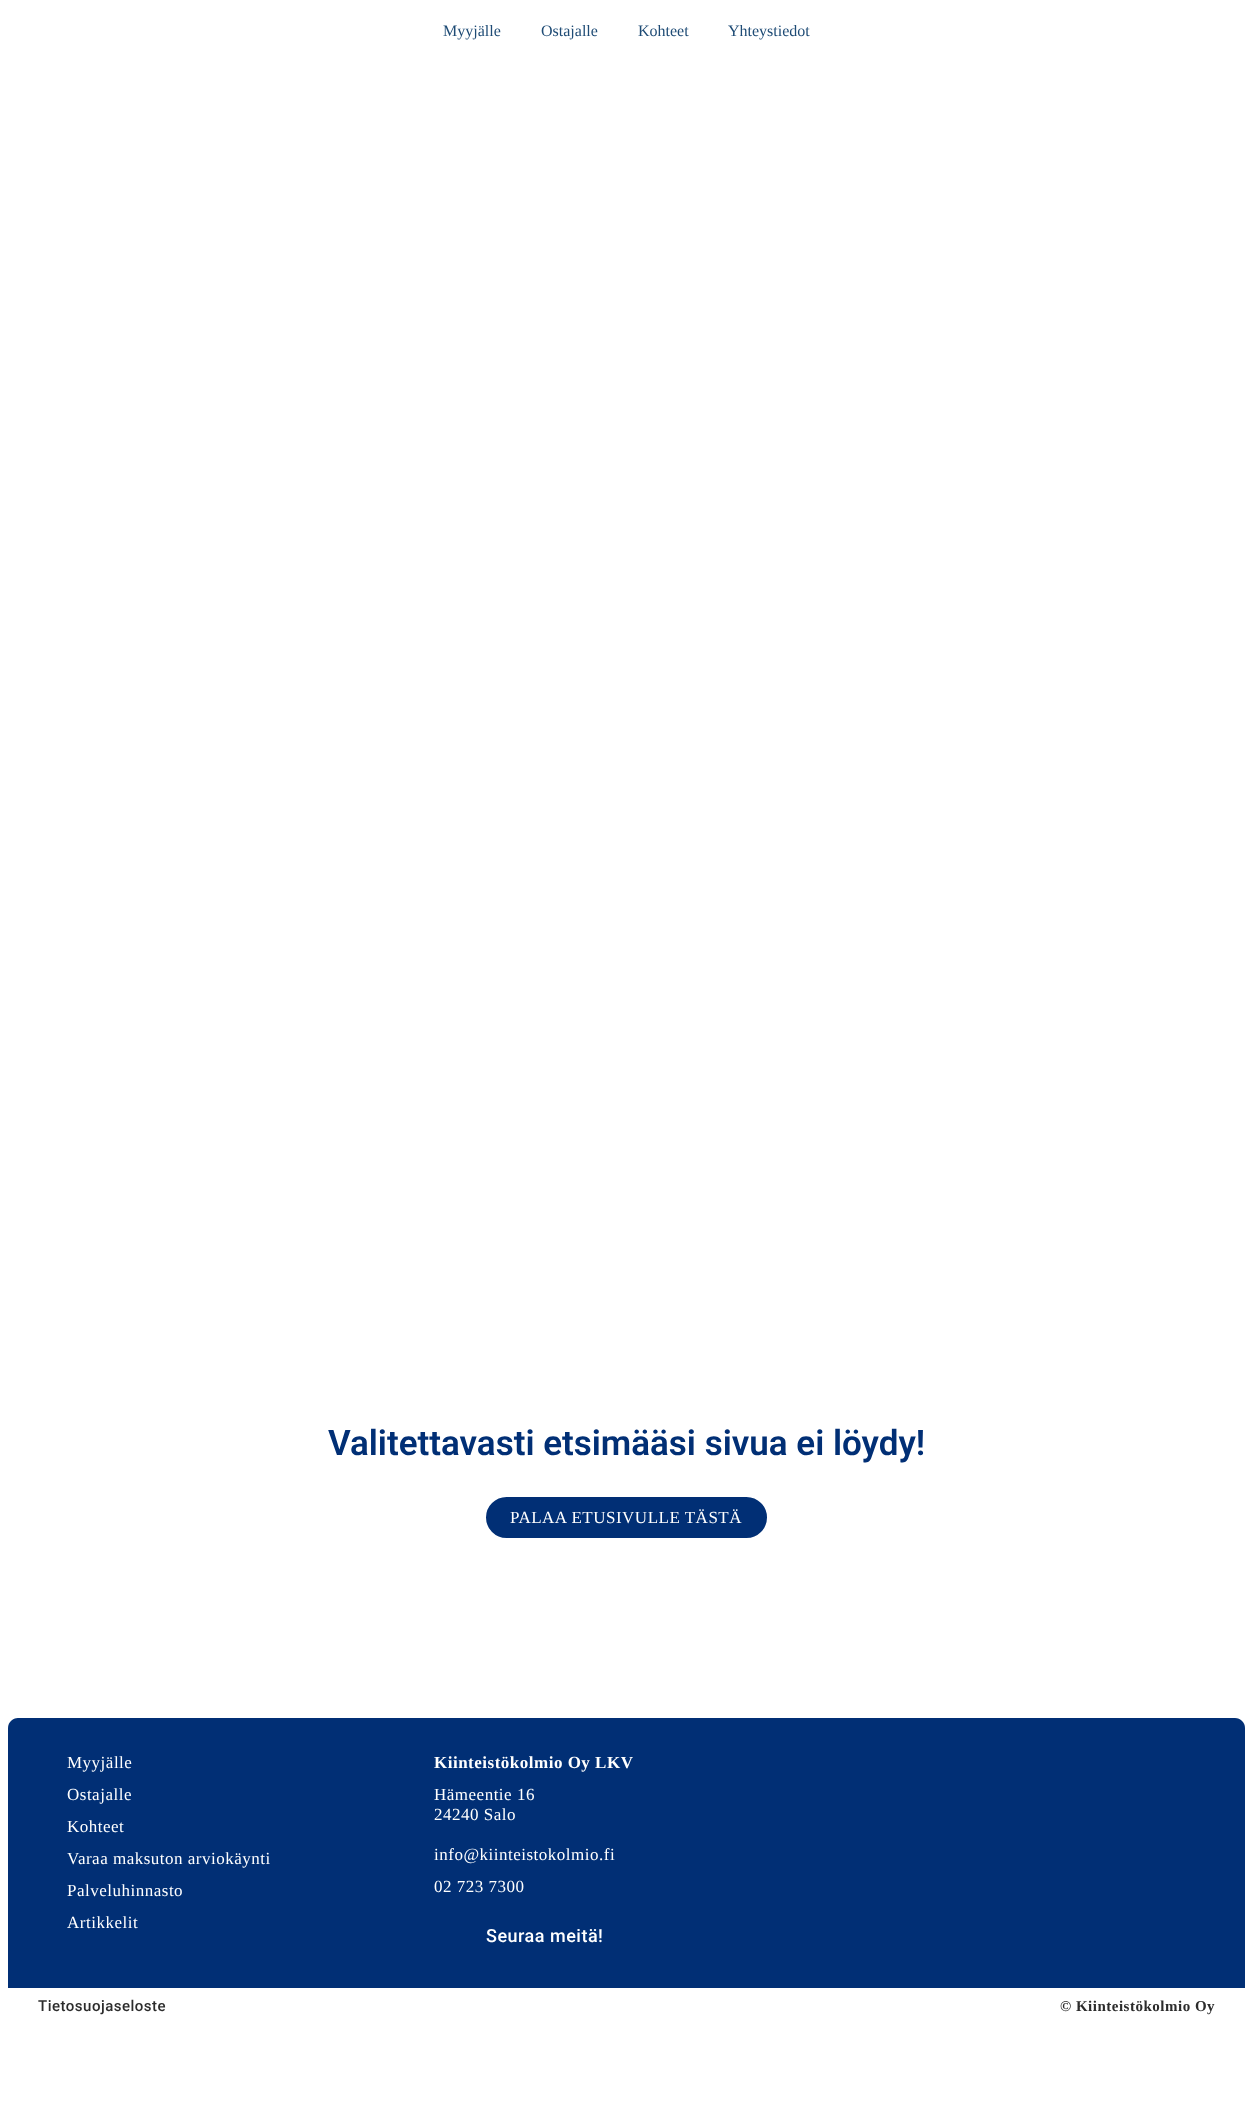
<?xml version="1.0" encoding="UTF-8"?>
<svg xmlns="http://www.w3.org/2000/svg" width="1253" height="2110">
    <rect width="100%" height="100%" fill="#FFFFFF"/>
    <text x="443" y="36" font-family="Liberation Serif" font-size="16" fill="#1E4B75">Myyjälle</text>
    <text x="541" y="36" font-family="Liberation Serif" font-size="16" fill="#1E4B75">Ostajalle</text>
    <text x="638" y="36" font-family="Liberation Serif" font-size="16" fill="#1E4B75">Kohteet</text>
    <text x="728" y="36" font-family="Liberation Serif" font-size="16" fill="#1E4B75">Yhteystiedot</text>
    <text x="328" y="1455" font-family="Roboto" font-size="35" font-weight="600" fill="#012F75">Valitettavasti etsimääsi sivua ei löydy!</text>
    <rect x="484.5" y="1495.5" width="284" height="44" rx="22" fill="#012F75" stroke="#FFFFFF" stroke-width="3"/>
    <text x="510" y="1523" font-family="Liberation Serif" font-size="17" letter-spacing="0.5" fill="#FFFFFF">PALAA ETUSIVULLE TÄSTÄ</text>
    <path d="M 18 1718 H 1235 C 1240.5 1718 1245 1722.5 1245 1728 V 1988 H 8 V 1728 C 8 1722.5 12.5 1718 18 1718 Z" fill="#012F75"/>
    <text font-family="Liberation Serif" font-size="17" letter-spacing="0.5" fill="#FFFFFF">
        <tspan x="67" y="1768">Myyjälle</tspan>
        <tspan x="67" y="1800">Ostajalle</tspan>
        <tspan x="67" y="1832">Kohteet</tspan>
        <tspan x="67" y="1864">Varaa maksuton arviokäynti</tspan>
        <tspan x="67" y="1896">Palveluhinnasto</tspan>
        <tspan x="67" y="1928">Artikkelit</tspan>
    </text>
    <text x="434" y="1768" font-family="Liberation Serif" font-size="17" font-weight="700" letter-spacing="0.5" fill="#FFFFFF">Kiinteistökolmio Oy LKV</text>
    <text font-family="Liberation Serif" font-size="17" letter-spacing="0.5" fill="#FFFFFF">
        <tspan x="434" y="1800">Hämeentie 16</tspan>
        <tspan x="434" y="1820">24240 Salo</tspan>
    </text>
    <text font-family="Liberation Serif" font-size="17" letter-spacing="0.5" fill="#FFFFFF">
        <tspan x="434" y="1860">info@kiinteistokolmio.fi</tspan>
        <tspan x="434" y="1892">02 723 7300</tspan>
    </text>
    <text x="486" y="1942" font-family="Roboto" font-size="18" font-weight="500" letter-spacing="0.5" fill="#FFFFFF">Seuraa meitä!</text>
    <text x="38" y="2011" font-family="Roboto" font-size="15" font-weight="500" letter-spacing="0.5" fill="#2C2C2C">Tietosuojaseloste</text>
    <text x="1060" y="2011" font-family="Liberation Serif" font-size="15" font-weight="700" letter-spacing="0.5" fill="#2C2C2C">© Kiinteistökolmio Oy</text>
</svg>
